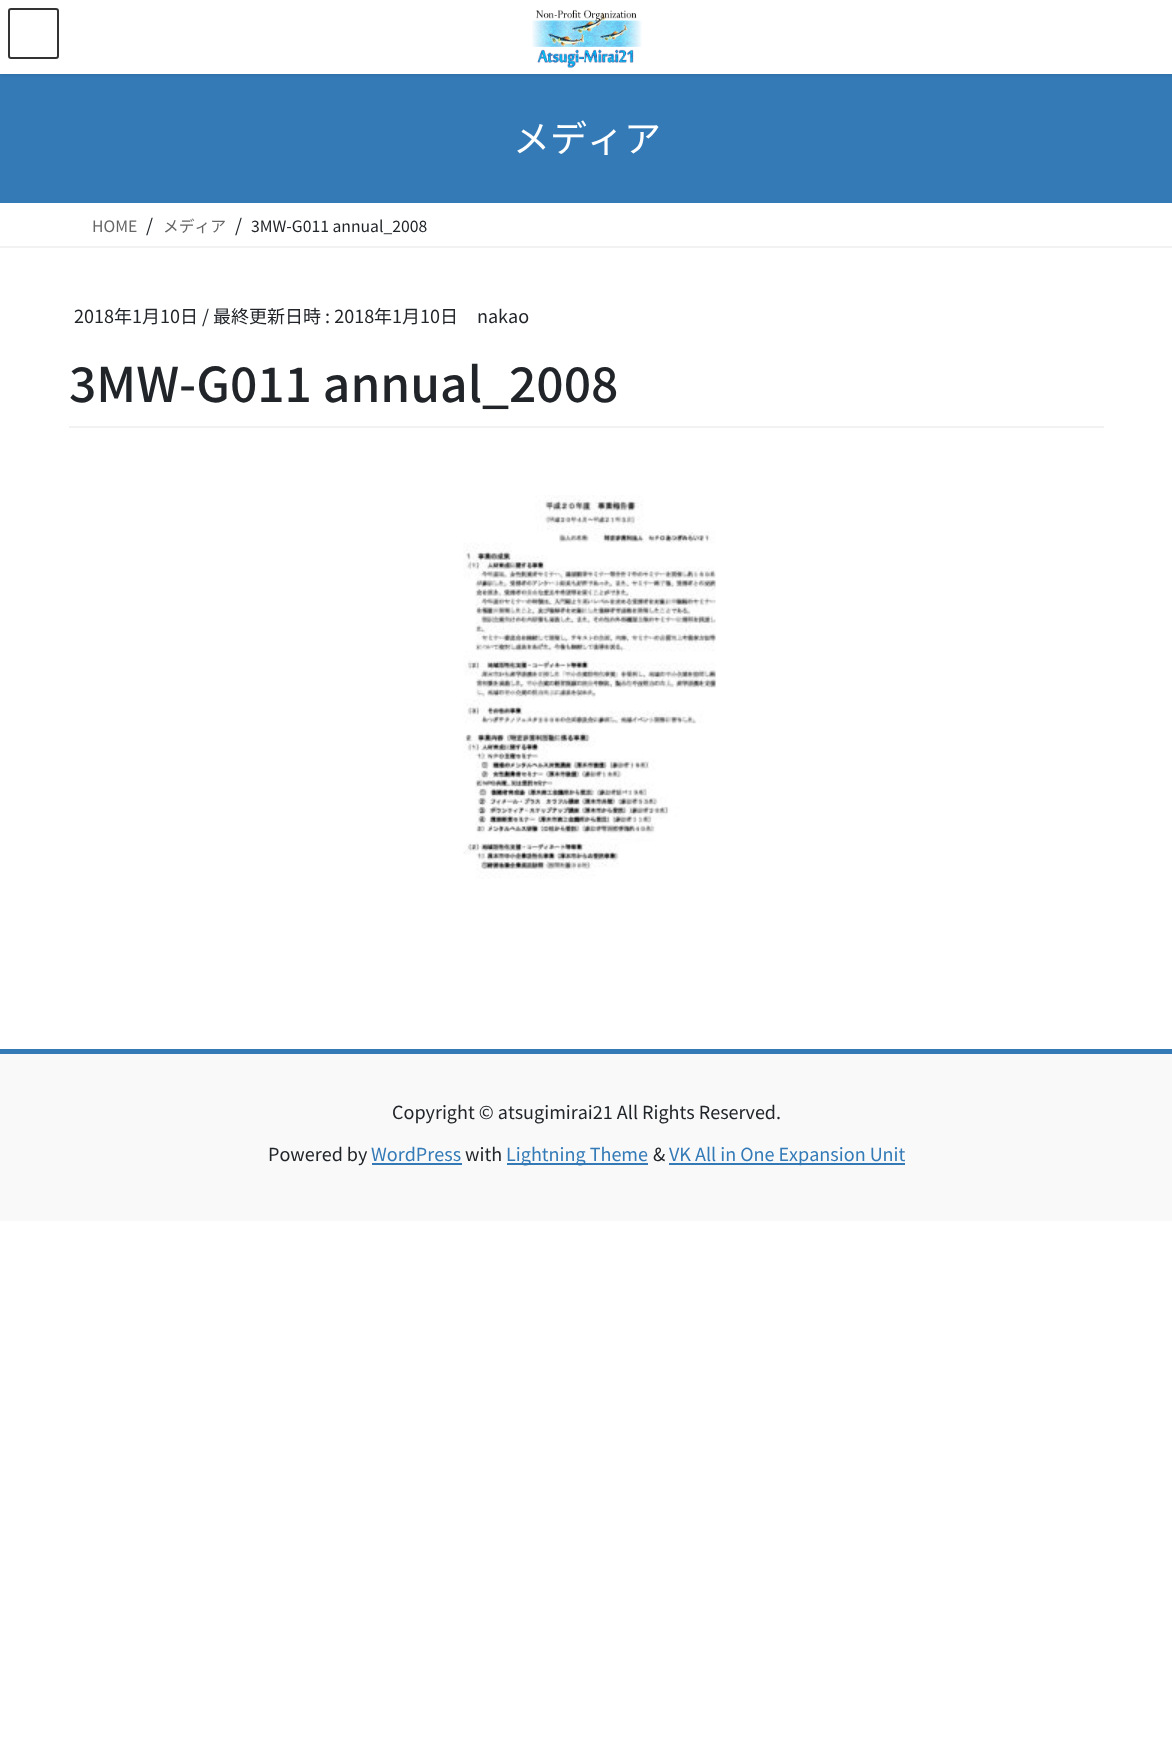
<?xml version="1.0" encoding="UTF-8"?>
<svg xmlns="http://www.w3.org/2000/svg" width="1172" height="1755">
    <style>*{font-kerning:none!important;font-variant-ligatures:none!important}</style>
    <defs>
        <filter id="blur1" x="-50%" y="-200%" width="200%" height="500%"><feGaussianBlur stdDeviation="2"/></filter>
    </defs>
    <rect width="100%" height="100%" fill="#FFFFFF"/>
    <rect x="0" y="74" width="1172" height="129" fill="#337AB7"/>
    <rect x="0" y="2" width="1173" height="73" fill="#000000" fill-opacity="0.1" filter="url(#blur1)"/>
    <rect x="0" y="0" width="1172" height="74" fill="#FFFFFF"/>
    <image x="532" y="9" width="110" height="59" href="img_01.png"/>
    <rect x="9" y="9" width="49" height="49" rx="2" fill="none" stroke="#333333" stroke-width="2"/>
    <text x="513" y="152" font-family="Noto Sans JP" font-size="37" fill="#FFFFFF">メディア</text>
    <rect x="0" y="246" width="1172" height="2" fill="#F2F2F2"/>
    <text x="92" y="232" font-family="Noto Sans JP" font-size="15.75" fill="#666666">HOME</text>
    <text x="146" y="232" font-family="Noto Sans JP" font-size="18" fill="#212529">/</text>
    <text x="163" y="232" font-family="Noto Sans JP" font-size="15.75" fill="#666666">メディア</text>
    <text x="235" y="232" font-family="Noto Sans JP" font-size="18" fill="#212529">/</text>
    <text x="251" y="232" font-family="Noto Sans JP" font-size="15.75" fill="#212529">3MW-G011 annual_2008</text>
    <rect x="69" y="426" width="1035" height="2" fill="#F2F2F2"/>
    <text x="74" y="323" font-family="Noto Sans JP" font-size="18" fill="#212529">2018年1月10日</text>
    <text x="202" y="323" font-family="Noto Sans JP" font-size="18" fill="#212529">/ 最終更新日時 : 2018年1月10日</text>
    <text x="477" y="323" font-family="Noto Sans JP" font-size="18" fill="#212529">nakao</text>
    <text x="69" y="402" font-family="Noto Sans JP" font-size="48" font-weight="500" fill="#212529">3MW-G011 annual_2008</text>
    <image x="463" y="495" width="253" height="384" href="img_02.png"/>
    <rect x="0" y="1054" width="1172" height="167" fill="#F9F9F9"/>
    <rect x="0" y="1049" width="1172" height="5" fill="#337AB7"/>
    <text x="392" y="1119" font-family="Noto Sans JP" font-size="18" fill="#212529">Copyright © atsugimirai21 All Rights Reserved.</text>
    <text x="268" y="1161" font-family="Noto Sans JP" font-size="18" fill="#212529">Powered by</text>
    <text x="371" y="1161" font-family="Noto Sans JP" font-size="18" fill="#337AB7">WordPress</text>
    <rect x="372" y="1163" width="90" height="2" fill="#337AB7"/>
    <text x="465" y="1161" font-family="Noto Sans JP" font-size="18" fill="#212529">with</text>
    <rect x="507" y="1163" width="141" height="2" fill="#337AB7"/>
    <text x="506" y="1161" font-family="Noto Sans JP" font-size="18" fill="#337AB7">Lightning Theme</text>
    <text x="653" y="1161" font-family="Noto Sans JP" font-size="18" fill="#212529">&amp;</text>
    <rect x="669" y="1163" width="236" height="2" fill="#337AB7"/>
    <text x="669" y="1161" font-family="Noto Sans JP" font-size="18" fill="#337AB7">VK All in One Expansion Unit</text>
</svg>
